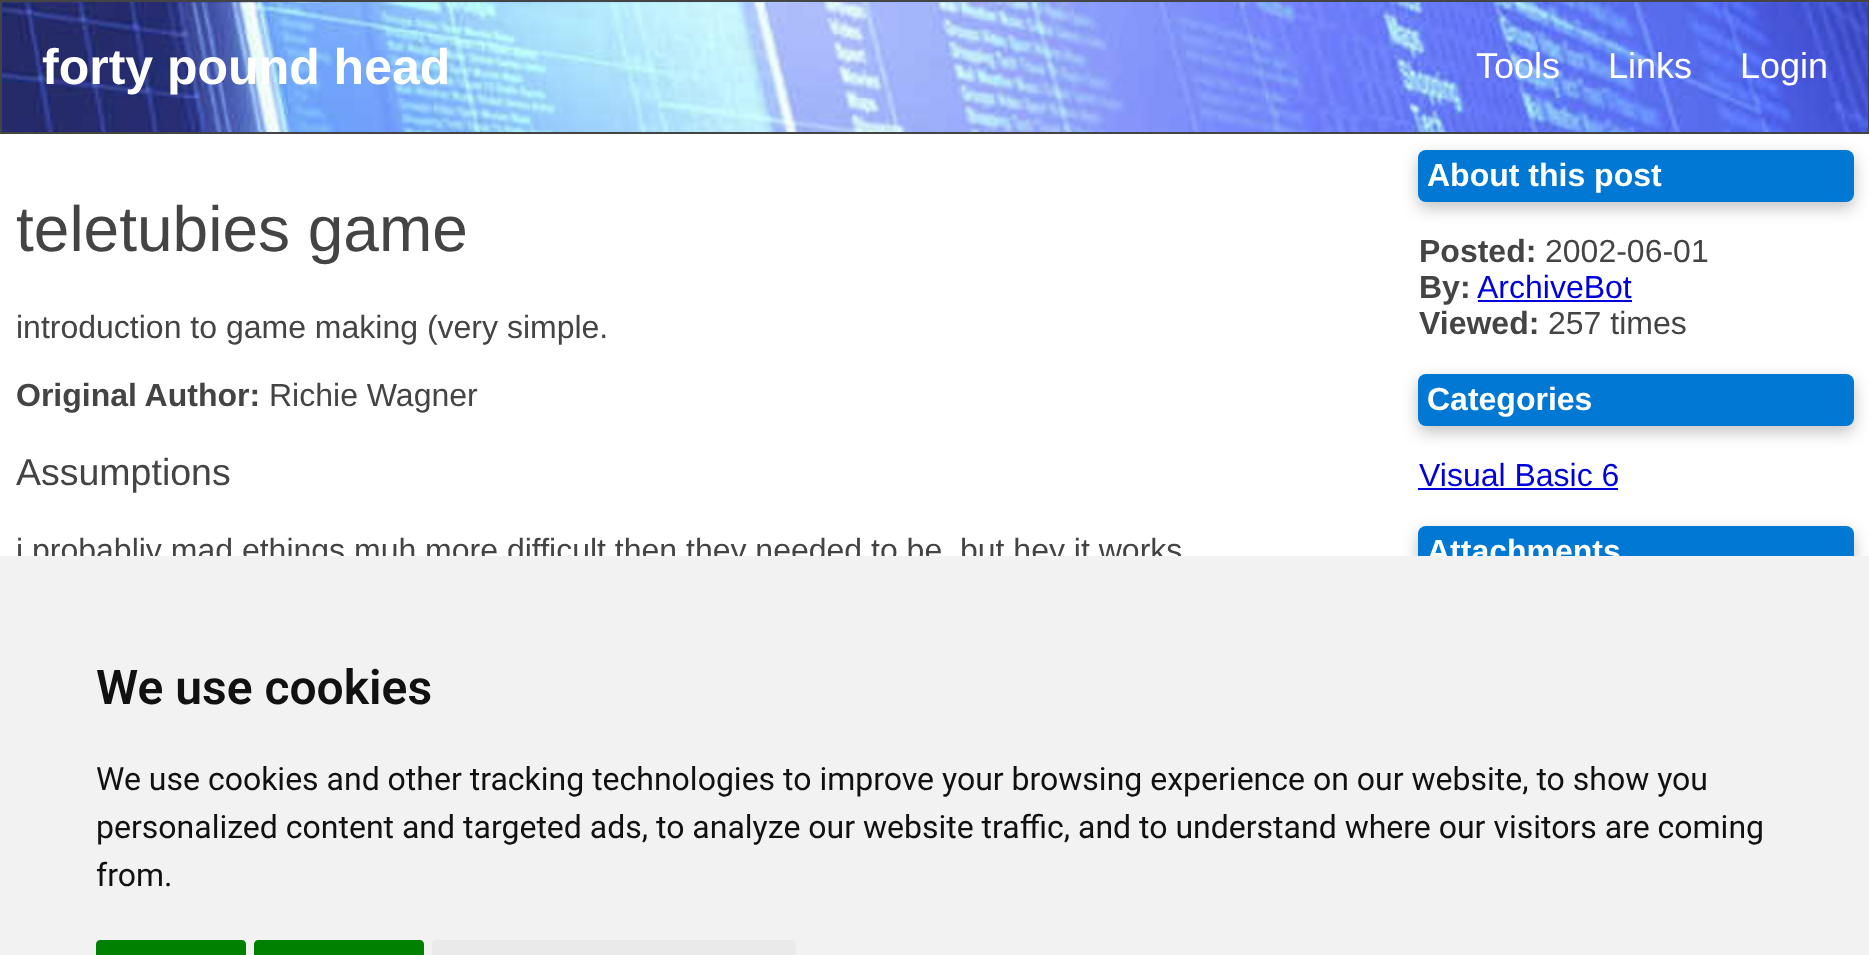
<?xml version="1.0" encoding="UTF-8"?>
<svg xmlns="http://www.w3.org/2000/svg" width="1869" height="955">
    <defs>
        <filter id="blur1" x="-50%" y="-200%" width="200%" height="500%"><feGaussianBlur stdDeviation="8"/></filter>
    </defs>
    <rect width="100%" height="100%" fill="#FFFFFF"/>
    <rect x="1418" y="156" width="436" height="52" rx="8" fill="#000000" fill-opacity="0.24" filter="url(#blur1)"/>
    <image x="2" y="2" width="1866" height="130" href="img_01.png"/>
    <rect x="1" y="1" width="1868" height="132" fill="none" stroke="#444444" stroke-width="2"/>
    <text x="42" y="84" font-family="Liberation Sans" font-size="50" font-weight="700" fill="#FFFFFF">forty pound head</text>
    <text x="1476" y="78" font-family="Liberation Sans" font-size="36" fill="#FFFFFF">Tools</text>
    <text x="1608" y="78" font-family="Liberation Sans" font-size="36" fill="#FFFFFF">Links</text>
    <text x="1740" y="78" font-family="Liberation Sans" font-size="36" fill="#FFFFFF">Login</text>
    <text x="16" y="251" font-family="Liberation Sans" font-size="64" fill="#444444">teletubies game</text>
    <text x="16" y="338" font-family="Liberation Sans" font-size="32" fill="#444444">introduction to game making (very simple.</text>
    <text x="16" y="406" font-family="Liberation Sans" font-size="32" font-weight="700" fill="#444444">Original Author:</text>
    <text x="269" y="406" font-family="Liberation Sans" font-size="32" fill="#444444">Richie Wagner</text>
    <text x="16" y="485" font-family="Liberation Sans" font-size="37.5" fill="#444444">Assumptions</text>
    <text x="16" y="561" font-family="Liberation Sans" font-size="32" fill="#444444">i probabliy mad ethings muh more difficult then they needed to be, but hey it works</text>
    <rect x="1418" y="150" width="436" height="52" rx="8" fill="#0078D4"/>
    <text x="1427" y="186" font-family="Liberation Sans" font-size="32" font-weight="700" fill="#FFFFFF">About this post</text>
    <text x="1419" y="262" font-family="Liberation Sans" font-size="32" font-weight="700" fill="#444444">Posted:</text>
    <text x="1545" y="262" font-family="Liberation Sans" font-size="32" fill="#444444">2002-06-01</text>
    <text x="1419" y="298" font-family="Liberation Sans" font-size="32" font-weight="700" fill="#444444">By:</text>
    <text x="1477" y="298" font-family="Liberation Sans" font-size="32" fill="#0000DD">ArchiveBot</text>
    <rect x="1478" y="300" width="154" height="2" fill="#0000DD"/>
    <text x="1419" y="334" font-family="Liberation Sans" font-size="32" font-weight="700" fill="#444444">Viewed:</text>
    <text x="1548" y="334" font-family="Liberation Sans" font-size="32" fill="#444444">257 times</text>
    <rect x="1418" y="380" width="436" height="52" rx="8" fill="#000000" fill-opacity="0.24" filter="url(#blur1)"/>
    <rect x="1418" y="374" width="436" height="52" rx="8" fill="#0078D4"/>
    <text x="1427" y="410" font-family="Liberation Sans" font-size="32" font-weight="700" fill="#FFFFFF">Categories</text>
    <text x="1419" y="486" font-family="Liberation Sans" font-size="32" fill="#0000DD">Visual Basic 6</text>
    <rect x="1418" y="488" width="200" height="2" fill="#0000DD"/>
    <rect x="1418" y="532" width="436" height="52" rx="8" fill="#000000" fill-opacity="0.24" filter="url(#blur1)"/>
    <rect x="1418" y="526" width="436" height="52" rx="8" fill="#0078D4"/>
    <text x="1427" y="562" font-family="Liberation Sans" font-size="32" font-weight="700" fill="#FFFFFF">Attachments</text>
    <rect x="0" y="556" width="1869" height="399" fill="#F2F2F2"/>
    <text x="96" y="704" font-family="Roboto" font-size="48" font-weight="600" fill="#111111">We use cookies</text>
    <text font-family="Roboto" font-size="32" fill="#111111">
        <tspan x="96" y="790">We use cookies and other tracking technologies to improve your browsing experience on our website, to show you</tspan>
        <tspan x="96" y="838">personalized content and targeted ads, to analyze our website traffic, and to understand where our visitors are coming</tspan>
        <tspan x="96" y="886">from.</tspan>
    </text>
    <path d="M 100 940 H 242 C 244 940 246 942 246 944 V 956 H 96 V 944 C 96 942 98 940 100 940 Z" fill="#008000"/>
    <path d="M 258 940 H 420 C 422 940 424 942 424 944 V 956 H 254 V 944 C 254 942 256 940 258 940 Z" fill="#008000"/>
    <path d="M 436 940 H 792 C 794 940 796 942 796 944 V 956 H 432 V 944 C 432 942 434 940 436 940 Z" fill="#EAEAEA"/>
</svg>
